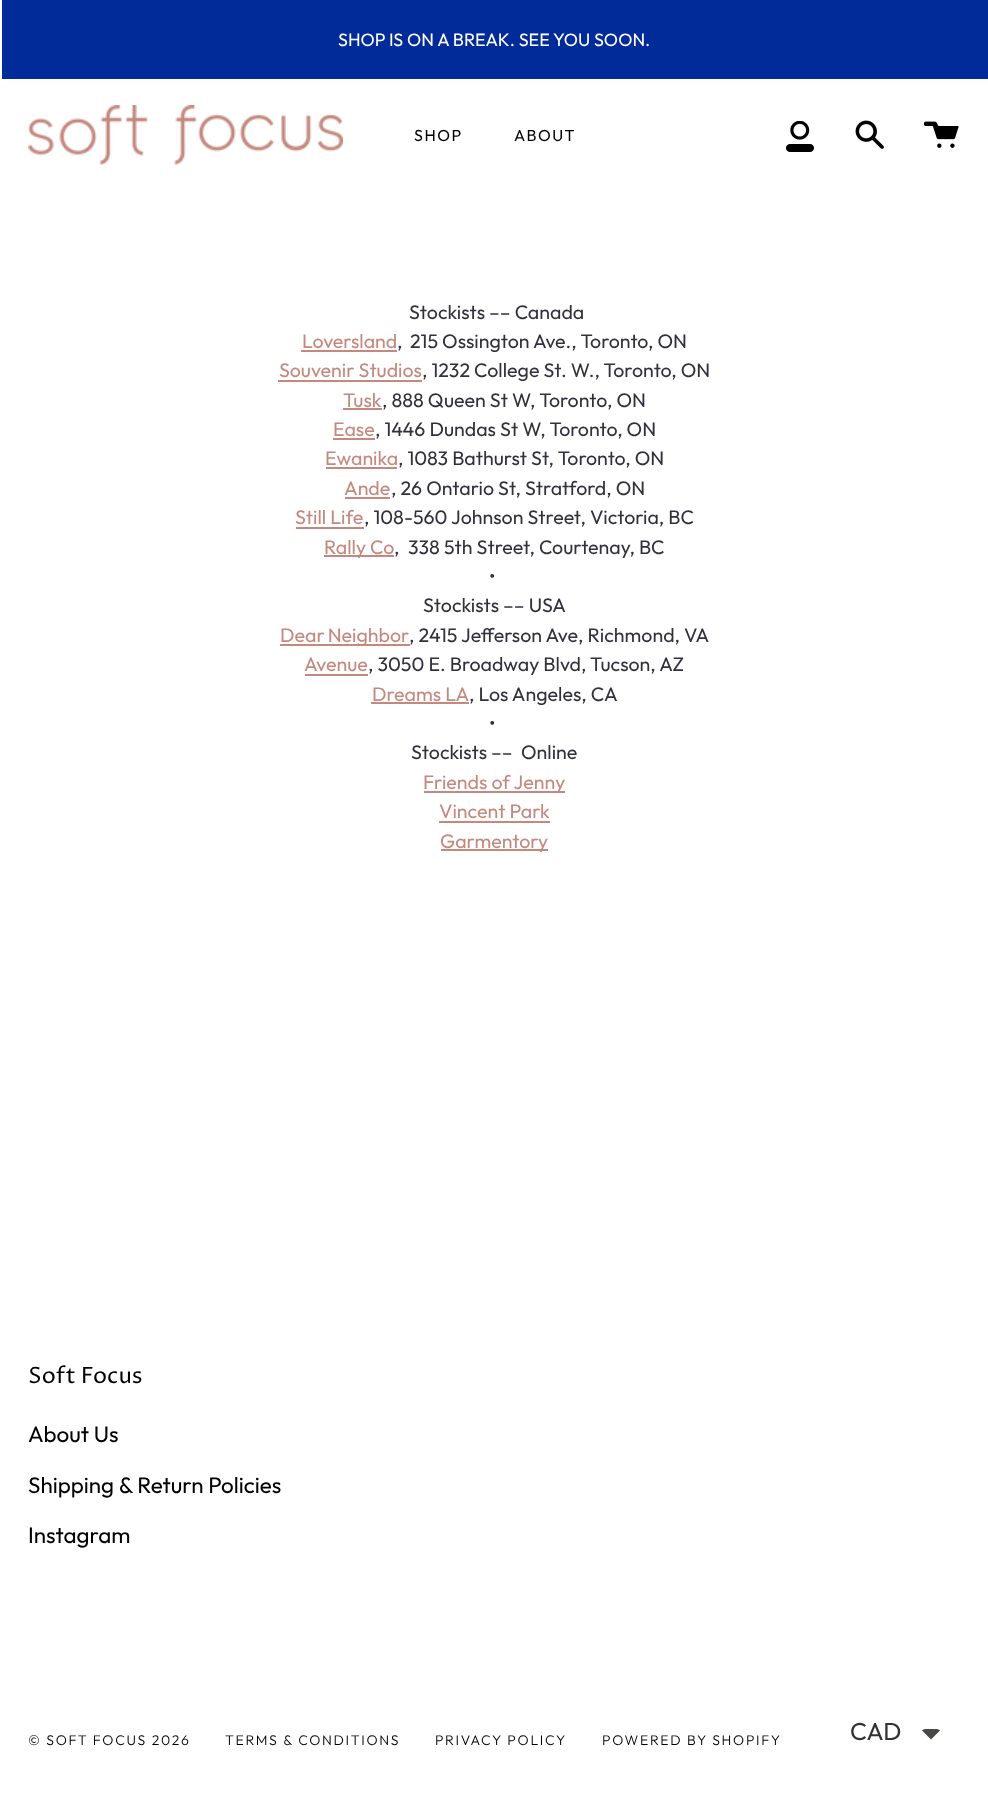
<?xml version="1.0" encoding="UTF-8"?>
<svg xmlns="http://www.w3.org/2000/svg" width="988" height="1800">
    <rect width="100%" height="100%" fill="#FFFFFF"/>
    <rect x="2" y="0" width="986" height="79" fill="#002B99"/>
    <text x="338" y="46" font-family="Outfit" font-size="17.9" fill="#FFFFFF">SHOP IS ON A BREAK. SEE YOU SOON.</text>
    <image x="28" y="105" width="315" height="60" href="img_01.png"/>
    <text x="414" y="141" font-family="Outfit" font-size="16" letter-spacing="1.5" fill="#000000">SHOP</text>
    <text x="514" y="141" font-family="Outfit" font-size="16" letter-spacing="1.5" fill="#000000">ABOUT</text>
    <image x="786" y="121" width="28" height="31" href="img_02.png"/>
    <image x="855" y="120" width="29" height="29" href="img_03.png"/>
    <image x="924" y="121" width="35" height="27" href="img_04.png"/>
    <text x="409" y="319" font-family="Outfit" font-size="19.6" fill="#33303E">Stockists –– Canada</text>
    <text x="302" y="348" font-family="Outfit" font-size="19.6" fill="#C4887E">Loversland</text>
    <rect x="301" y="350" width="96" height="2" fill="#C4887E"/>
    <text x="397" y="348" font-family="Outfit" font-size="19.6" fill="#33303E">,</text>
    <text x="410" y="348" font-family="Outfit" font-size="19.6" fill="#33303E">215 Ossington Ave., Toronto, ON</text>
    <text x="279" y="377" font-family="Outfit" font-size="19.6" fill="#C4887E">Souvenir Studios</text>
    <rect x="278" y="380" width="144" height="2" fill="#C4887E"/>
    <text x="422" y="377" font-family="Outfit" font-size="19.6" fill="#33303E">, 1232 College St. W., Toronto, ON</text>
    <text x="343" y="407" font-family="Outfit" font-size="19.6" fill="#C4887E">Tusk</text>
    <text x="382" y="407" font-family="Outfit" font-size="19.6" fill="#33303E">, 888 Queen St W, Toronto, ON</text>
    <rect x="343" y="408" width="39" height="2" fill="#C4887E"/>
    <text x="333" y="436" font-family="Outfit" font-size="19.6" fill="#C4887E">Ease</text>
    <text x="375" y="436" font-family="Outfit" font-size="19.6" fill="#33303E">, 1446 Dundas St W, Toronto, ON</text>
    <rect x="333" y="438" width="42" height="2" fill="#C4887E"/>
    <text x="325" y="465" font-family="Outfit" font-size="19.6" fill="#C4887E">Ewanika</text>
    <rect x="326" y="467" width="71" height="2" fill="#C4887E"/>
    <text x="398" y="465" font-family="Outfit" font-size="19.6" fill="#33303E">, 1083 Bathurst St, Toronto, ON</text>
    <text x="344" y="495" font-family="Outfit" font-size="19.6" fill="#C4887E">Ande</text>
    <rect x="345" y="497" width="45" height="2" fill="#C4887E"/>
    <text x="391" y="495" font-family="Outfit" font-size="19.6" fill="#33303E">, 26 Ontario St, Stratford, ON</text>
    <text x="295" y="524" font-family="Outfit" font-size="19.6" fill="#C4887E">Still Life</text>
    <rect x="296" y="527" width="68" height="2" fill="#C4887E"/>
    <text x="364" y="524" font-family="Outfit" font-size="19.6" fill="#33303E">, 108-560 Johnson Street, Victoria, BC</text>
    <rect x="324" y="555" width="70" height="2" fill="#C4887E"/>
    <text x="324" y="554" font-family="Outfit" font-size="19.6" fill="#C4887E">Rally Co</text>
    <text x="394" y="554" font-family="Outfit" font-size="19.6" fill="#33303E">,</text>
    <text x="408" y="554" font-family="Outfit" font-size="19.6" fill="#33303E">338 5th Street, Courtenay, BC</text>
    <text x="489" y="583" font-family="Outfit" font-size="19.6" fill="#33303E">•</text>
    <text x="423" y="612" font-family="Outfit" font-size="19.6" fill="#33303E">Stockists –– USA</text>
    <rect x="280" y="644" width="130" height="2" fill="#C4887E"/>
    <text x="280" y="642" word-spacing="-1" font-family="Outfit" font-size="19.6" fill="#C4887E">Dear Neighbor</text>
    <text x="409" y="642" font-family="Outfit" font-size="19.6" fill="#33303E">, 2415 Jefferson Ave, Richmond, VA</text>
    <text x="304" y="671" font-family="Outfit" font-size="19.6" fill="#C4887E">Avenue</text>
    <rect x="305" y="674" width="63" height="2" fill="#C4887E"/>
    <text x="368" y="671" font-family="Outfit" font-size="19.6" fill="#33303E">, 3050 E. Broadway Blvd, Tucson, AZ</text>
    <text x="372" y="701" font-family="Outfit" font-size="19.6" fill="#C4887E">Dreams LA</text>
    <rect x="371" y="702" width="98" height="2" fill="#C4887E"/>
    <text x="469" y="701" font-family="Outfit" font-size="19.6" fill="#33303E">, Los Angeles, CA</text>
    <text x="489" y="730" font-family="Outfit" font-size="19.6" fill="#33303E">•</text>
    <text x="411" y="759" font-family="Outfit" font-size="19.6" fill="#33303E">Stockists ––</text>
    <text x="521" y="759" font-family="Outfit" font-size="19.6" fill="#33303E">Online</text>
    <rect x="424" y="791" width="141" height="2" fill="#C4887E"/>
    <text x="423" y="789" font-family="Outfit" font-size="19.6" fill="#C4887E">Friends of Jenny</text>
    <text x="439" y="818" font-family="Outfit" font-size="19.6" fill="#C4887E">Vincent Park</text>
    <rect x="439" y="821" width="111" height="2" fill="#C4887E"/>
    <rect x="441" y="849" width="107" height="2" fill="#C4887E"/>
    <text x="440" y="848" font-family="Outfit" font-size="19.6" fill="#C4887E">Garmentory</text>
    <text x="28" y="1383" font-family="Proza Libre" font-size="22.4" fill="#000000">Soft Focus</text>
    <text x="28" y="1442" font-family="Outfit" font-size="22.4" fill="#000000">About Us</text>
    <text x="28" y="1493" font-family="Outfit" font-size="22.4" fill="#000000">Shipping &amp; Return Policies</text>
    <text x="28" y="1543" font-family="Outfit" font-size="22.4" fill="#000000">Instagram</text>
    <text x="28" y="1745" font-family="Outfit" font-size="14" font-weight="300" letter-spacing="1.7" fill="#000000">© SOFT FOCUS 2026</text>
    <text x="225" y="1745" font-family="Outfit" font-size="14" font-weight="300" letter-spacing="1.7" fill="#000000">TERMS &amp; CONDITIONS</text>
    <text x="435" y="1745" font-family="Outfit" font-size="14" font-weight="300" letter-spacing="1.7" fill="#000000">PRIVACY POLICY</text>
    <text x="602" y="1745" font-family="Outfit" font-size="14" font-weight="300" letter-spacing="1.7" fill="#000000">POWERED BY SHOPIFY</text>
    <text x="850" y="1740" font-family="Outfit" font-size="24.5" fill="#333333">CAD</text>
    <path d="M 926 1729 C 924.5 1729 923 1729.5 922 1730.5 L 931 1739.5 L 940 1730.5 C 939 1729.5 937.5 1729 936 1729 Z" fill="#474942"/>
</svg>
